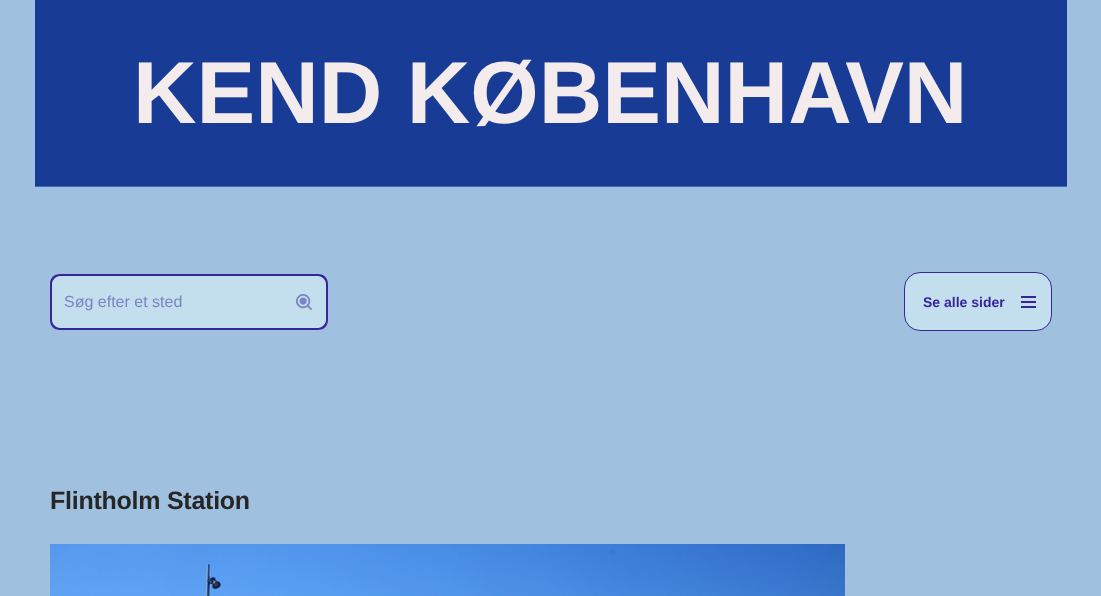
<?xml version="1.0" encoding="UTF-8"?>
<svg xmlns="http://www.w3.org/2000/svg" width="1101" height="596">
    <rect width="100%" height="100%" fill="#9FC0DE"/>
    <rect x="35" y="0" width="1032" height="186" fill="#183C96"/>
    <rect x="35" y="186" width="1032" height="1" fill="#3973B5"/>
    <text x="133" y="123" font-family="Liberation Sans" font-size="88" font-weight="700" fill="#F4ECEC">KEND KØBENHAVN</text>
    <path d="M 60 274 H 283 V 330 H 60 C 54.5 330 50 325.5 50 320 V 284 C 50 278.5 54.5 274 60 274 Z" fill="#C3DEEC"/>
    <path d="M 60 274 H 283 V 330 H 60 C 54 330 50 326 50 320 V 284 C 50 278 54 274 60 274 Z M 60 276 H 283 V 328 H 60 C 56 328 52 324 52 320 V 284 C 52 280 56 276 60 276 Z" fill="#372698" fill-rule="evenodd"/>
    <text x="64" y="307" font-family="Liberation Sans" font-size="16" fill="#7D82C2">Søg efter et sted</text>
    <path d="M 283 274 H 318 C 323.5 274 328 278.5 328 284 V 320 C 328 325.5 323.5 330 318 330 H 283 Z" fill="#C3DEEC"/>
    <path d="M 283 274 H 318 C 324 274 328 278 328 284 V 320 C 328 326 324 330 318 330 H 283 Z M 283 276 H 318 C 322 276 326 280 326 284 V 320 C 326 324 322 328 318 328 H 283 Z" fill="#372698" fill-rule="evenodd"/>
    <image x="296" y="294" width="16" height="16" href="img_01.png"/>
    <rect x="904.5" y="272.5" width="147" height="58" rx="15.5" fill="#C3DEEC" stroke="#372698"/>
    <text x="923" y="307" font-family="Liberation Sans" font-size="14" font-weight="700" fill="#372698">Se alle sider</text>
    <rect x="1021" y="296" width="15" height="2" fill="#372698"/>
    <rect x="1021" y="301" width="15" height="2" fill="#372698"/>
    <rect x="1021" y="306" width="15" height="2" fill="#372698"/>
    <text x="50" y="509" font-family="Liberation Sans" font-size="25" font-weight="700" letter-spacing="-0.25" fill="#272626">Flintholm Station</text>
    <image x="50" y="544" width="795" height="52" href="img_02.png"/>
</svg>
